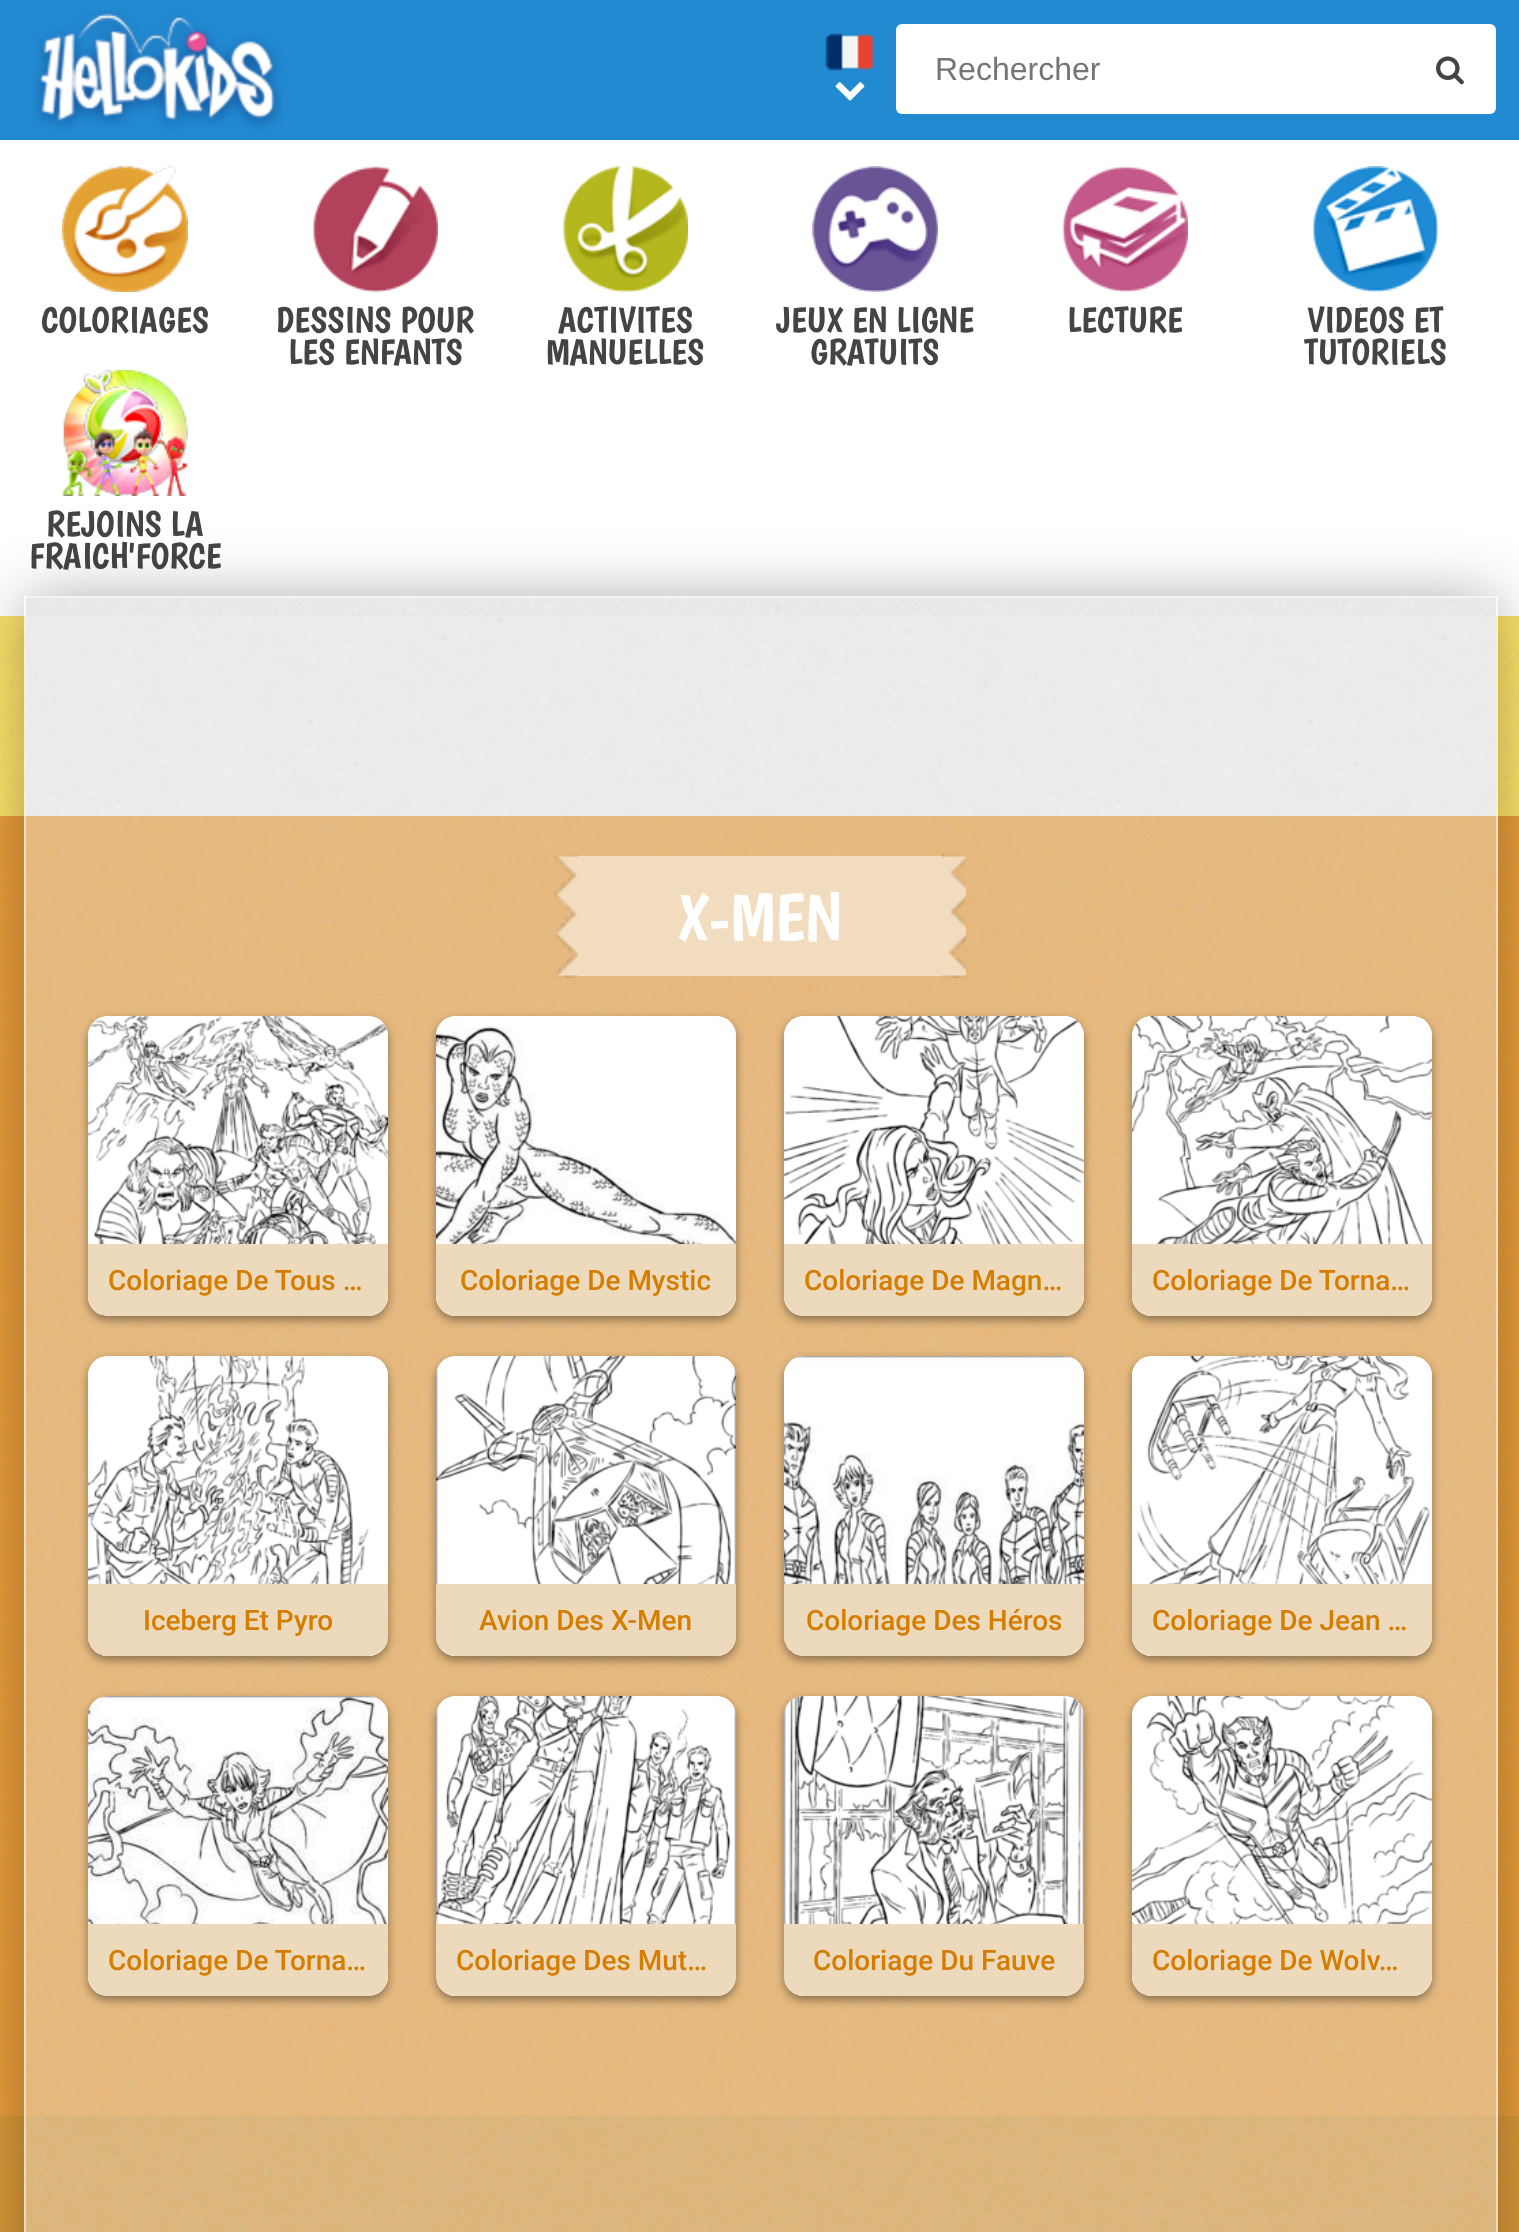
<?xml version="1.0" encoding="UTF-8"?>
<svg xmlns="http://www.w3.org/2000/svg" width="1519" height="2232">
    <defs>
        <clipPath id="clip1"><rect x="1276" y="304" width="200" height="64"/></clipPath>
        <clipPath id="clip2"><path d="M 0 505 H 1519 V 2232 H 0 Z M 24 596 H 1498 V 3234 H 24 Z" clip-rule="evenodd"/></clipPath>
        <filter id="blur1" x="-50%" y="-200%" width="200%" height="500%"><feGaussianBlur stdDeviation="30"/></filter>
        <filter id="blur2" x="-50%" y="-200%" width="200%" height="500%"><feGaussianBlur stdDeviation="5"/></filter>
    </defs>
    <rect width="100%" height="100%" fill="#FFFFFF"/>
    <rect x="0" y="0" width="1519" height="140" fill="#228AD1"/>
    <image x="33" y="10" width="250" height="120" href="img_01.png"/>
    <image x="825" y="33" width="50" height="38" href="img_02.png"/>
    <image x="835" y="82" width="30" height="19" href="img_03.png"/>
    <rect x="896" y="24" width="600" height="90" rx="6" fill="#FFFFFF"/>
    <text x="935" y="80" font-family="Liberation Sans" font-size="32" fill="#757575">Rechercher</text>
    <image x="1436" y="56" width="28" height="29" href="img_04.png"/>
    <image x="62" y="166" width="126" height="126" href="img_05.png"/>
    <text x="41" y="332" font-family="Boogaloo" font-size="36" fill="#444444">COLORIAGES</text>
    <image x="312" y="166" width="126" height="126" href="img_06.png"/>
    <text x="276" y="332" font-family="Boogaloo" font-size="36" fill="#444444">DESSINS POUR</text>
    <text x="288" y="364" font-family="Boogaloo" font-size="36" fill="#444444">LES ENFANTS</text>
    <image x="562" y="166" width="126" height="126" href="img_07.png"/>
    <text x="558" y="332" font-family="Boogaloo" font-size="36" fill="#444444">ACTIVITES</text>
    <text x="546" y="364" font-family="Boogaloo" font-size="36" fill="#444444">MANUELLES</text>
    <image x="812" y="166" width="126" height="126" href="img_08.png"/>
    <text x="776" y="332" font-family="Boogaloo" font-size="36" fill="#444444">JEUX EN LIGNE</text>
    <text x="810" y="364" font-family="Boogaloo" font-size="36" fill="#444444">GRATUITS</text>
    <image x="1062" y="166" width="126" height="126" href="img_09.png"/>
    <text x="1067" y="332" font-family="Boogaloo" font-size="36" fill="#444444">LECTURE</text>
    <image x="1312" y="166" width="126" height="126" href="img_10.png"/>
    <g clip-path="url(#clip1)">
        <text x="1307" y="332" font-family="Boogaloo" font-size="36" fill="#444444">VIDÉOS ET</text>
    </g>
    <text x="1304" y="364" font-family="Boogaloo" font-size="36" fill="#444444">TUTORIELS</text>
    <image x="62" y="370" width="126" height="126" href="img_11.png"/>
    <text x="46" y="536" font-family="Boogaloo" font-size="36" fill="#444444">REJOINS LA</text>
    <text x="29" y="568" font-family="Boogaloo" font-size="36" fill="#444444">FRAICH'FORCE</text>
    <rect x="26" y="596" width="1470" height="20" fill="#F2F2F2"/>
    <image x="26" y="596" width="1470" height="20" href="img_13.png"/>
    <rect x="0" y="616" width="1519" height="200" fill="#FEE365"/>
    <image x="0" y="616" width="1519" height="200" href="img_14.png"/>
    <rect x="26" y="616" width="1470" height="200" fill="#F2F2F2"/>
    <rect x="0" y="816" width="1519" height="1300" fill="#EB9B33"/>
    <image x="0" y="816" width="1519" height="1300" href="img_15.png"/>
    <rect x="0" y="2116" width="1519" height="116" fill="#D99530"/>
    <image x="0" y="2116" width="1519" height="116" href="img_30.png"/>
    <g clip-path="url(#clip2)">
        <rect x="24" y="596" width="1474" height="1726" fill="#000000" fill-opacity="0.3" filter="url(#blur1)"/>
    </g>
    <image x="24" y="596" width="1474" height="1636" href="img_12.png"/>
    <rect x="25" y="597" width="1472" height="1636" fill="none" stroke="#FFFFFF" stroke-opacity="0.5" stroke-width="2"/>
    <rect x="578" y="856" width="364" height="120" fill="#FFFFFF" fill-opacity="0.5"/>
    <image x="554" y="854" width="24" height="124" href="img_16.png"/>
    <text x="677" y="940" font-family="Boogaloo" font-size="68" fill="#FFFFFF">X-MEN</text>
    <image x="942" y="854" width="24" height="124" href="img_17.png"/>
    <rect x="88" y="1020" width="300" height="300" rx="20" fill="#000000" fill-opacity="0.4" filter="url(#blur2)"/>
    <rect x="88" y="1016" width="300" height="300" rx="20" fill="#FFFFFF"/>
    <image x="88" y="1016" width="300" height="300" href="img_18.png"/>
    <path d="M 88 1244 H 388 V 1296 C 388 1307 379 1316 368 1316 H 108 C 97 1316 88 1307 88 1296 Z" fill="#EDD9BC"/>
    <text x="108" y="1290" font-family="Roboto" font-size="28" font-weight="500" fill="#D47D00">Coloriage De Tous …</text>
    <rect x="436" y="1020" width="300" height="300" rx="20" fill="#000000" fill-opacity="0.4" filter="url(#blur2)"/>
    <rect x="436" y="1016" width="300" height="300" rx="20" fill="#FFFFFF"/>
    <image x="436" y="1016" width="300" height="300" href="img_19.png"/>
    <path d="M 436 1244 H 736 V 1296 C 736 1307 727 1316 716 1316 H 456 C 445 1316 436 1307 436 1296 Z" fill="#EDD9BC"/>
    <text x="460" y="1290" font-family="Roboto" font-size="28" font-weight="500" fill="#D47D00">Coloriage De Mystic</text>
    <rect x="784" y="1020" width="300" height="300" rx="20" fill="#000000" fill-opacity="0.4" filter="url(#blur2)"/>
    <rect x="784" y="1016" width="300" height="300" rx="20" fill="#FFFFFF"/>
    <image x="784" y="1016" width="300" height="300" href="img_20.png"/>
    <path d="M 784 1244 H 1084 V 1296 C 1084 1307 1075 1316 1064 1316 H 804 C 793 1316 784 1307 784 1296 Z" fill="#EDD9BC"/>
    <text x="804" y="1290" font-family="Roboto" font-size="28" font-weight="500" fill="#D47D00">Coloriage De Magn…</text>
    <rect x="1132" y="1020" width="300" height="300" rx="20" fill="#000000" fill-opacity="0.4" filter="url(#blur2)"/>
    <rect x="1132" y="1016" width="300" height="300" rx="20" fill="#FFFFFF"/>
    <image x="1132" y="1016" width="300" height="300" href="img_21.png"/>
    <path d="M 1132 1244 H 1432 V 1296 C 1432 1307 1423 1316 1412 1316 H 1152 C 1141 1316 1132 1307 1132 1296 Z" fill="#EDD9BC"/>
    <text x="1152" y="1290" font-family="Roboto" font-size="28" font-weight="500" fill="#D47D00">Coloriage De Torna…</text>
    <rect x="88" y="1360" width="300" height="300" rx="20" fill="#000000" fill-opacity="0.4" filter="url(#blur2)"/>
    <rect x="88" y="1356" width="300" height="300" rx="20" fill="#FFFFFF"/>
    <image x="88" y="1356" width="300" height="300" href="img_22.png"/>
    <path d="M 88 1584 H 388 V 1636 C 388 1647 379 1656 368 1656 H 108 C 97 1656 88 1647 88 1636 Z" fill="#EDD9BC"/>
    <text x="143" y="1630" font-family="Roboto" font-size="28" font-weight="500" fill="#D47D00">Iceberg Et Pyro</text>
    <rect x="436" y="1360" width="300" height="300" rx="20" fill="#000000" fill-opacity="0.4" filter="url(#blur2)"/>
    <rect x="436" y="1356" width="300" height="300" rx="20" fill="#FFFFFF"/>
    <image x="436" y="1356" width="300" height="300" href="img_23.png"/>
    <path d="M 436 1584 H 736 V 1636 C 736 1647 727 1656 716 1656 H 456 C 445 1656 436 1647 436 1636 Z" fill="#EDD9BC"/>
    <text x="479" y="1630" font-family="Roboto" font-size="28" font-weight="500" fill="#D47D00">Avion Des X-Men</text>
    <rect x="784" y="1360" width="300" height="300" rx="20" fill="#000000" fill-opacity="0.4" filter="url(#blur2)"/>
    <rect x="784" y="1356" width="300" height="300" rx="20" fill="#FFFFFF"/>
    <image x="784" y="1356" width="300" height="300" href="img_24.png"/>
    <path d="M 784 1584 H 1084 V 1636 C 1084 1647 1075 1656 1064 1656 H 804 C 793 1656 784 1647 784 1636 Z" fill="#EDD9BC"/>
    <text x="806" y="1630" font-family="Roboto" font-size="28" font-weight="500" fill="#D47D00">Coloriage Des Héros</text>
    <rect x="1132" y="1360" width="300" height="300" rx="20" fill="#000000" fill-opacity="0.4" filter="url(#blur2)"/>
    <rect x="1132" y="1356" width="300" height="300" rx="20" fill="#FFFFFF"/>
    <image x="1132" y="1356" width="300" height="300" href="img_25.png"/>
    <path d="M 1132 1584 H 1432 V 1636 C 1432 1647 1423 1656 1412 1656 H 1152 C 1141 1656 1132 1647 1132 1636 Z" fill="#EDD9BC"/>
    <text x="1152" y="1630" font-family="Roboto" font-size="28" font-weight="500" fill="#D47D00">Coloriage De Jean …</text>
    <rect x="88" y="1700" width="300" height="300" rx="20" fill="#000000" fill-opacity="0.4" filter="url(#blur2)"/>
    <rect x="88" y="1696" width="300" height="300" rx="20" fill="#FFFFFF"/>
    <image x="88" y="1696" width="300" height="300" href="img_26.png"/>
    <path d="M 88 1924 H 388 V 1976 C 388 1987 379 1996 368 1996 H 108 C 97 1996 88 1987 88 1976 Z" fill="#EDD9BC"/>
    <text x="108" y="1970" font-family="Roboto" font-size="28" font-weight="500" fill="#D47D00">Coloriage De Torna…</text>
    <rect x="436" y="1700" width="300" height="300" rx="20" fill="#000000" fill-opacity="0.4" filter="url(#blur2)"/>
    <rect x="436" y="1696" width="300" height="300" rx="20" fill="#FFFFFF"/>
    <image x="436" y="1696" width="300" height="300" href="img_27.png"/>
    <path d="M 436 1924 H 736 V 1976 C 736 1987 727 1996 716 1996 H 456 C 445 1996 436 1987 436 1976 Z" fill="#EDD9BC"/>
    <text x="456" y="1970" font-family="Roboto" font-size="28" font-weight="500" fill="#D47D00">Coloriage Des Mut…</text>
    <rect x="784" y="1700" width="300" height="300" rx="20" fill="#000000" fill-opacity="0.4" filter="url(#blur2)"/>
    <rect x="784" y="1696" width="300" height="300" rx="20" fill="#FFFFFF"/>
    <image x="784" y="1696" width="300" height="300" href="img_28.png"/>
    <path d="M 784 1924 H 1084 V 1976 C 1084 1987 1075 1996 1064 1996 H 804 C 793 1996 784 1987 784 1976 Z" fill="#EDD9BC"/>
    <text x="813" y="1970" font-family="Roboto" font-size="28" font-weight="500" fill="#D47D00">Coloriage Du Fauve</text>
    <rect x="1132" y="1700" width="300" height="300" rx="20" fill="#000000" fill-opacity="0.4" filter="url(#blur2)"/>
    <rect x="1132" y="1696" width="300" height="300" rx="20" fill="#FFFFFF"/>
    <image x="1132" y="1696" width="300" height="300" href="img_29.png"/>
    <path d="M 1132 1924 H 1432 V 1976 C 1432 1987 1423 1996 1412 1996 H 1152 C 1141 1996 1132 1987 1132 1976 Z" fill="#EDD9BC"/>
    <text x="1152" y="1970" font-family="Roboto" font-size="28" font-weight="500" fill="#D47D00">Coloriage De Wolv…</text>
</svg>
